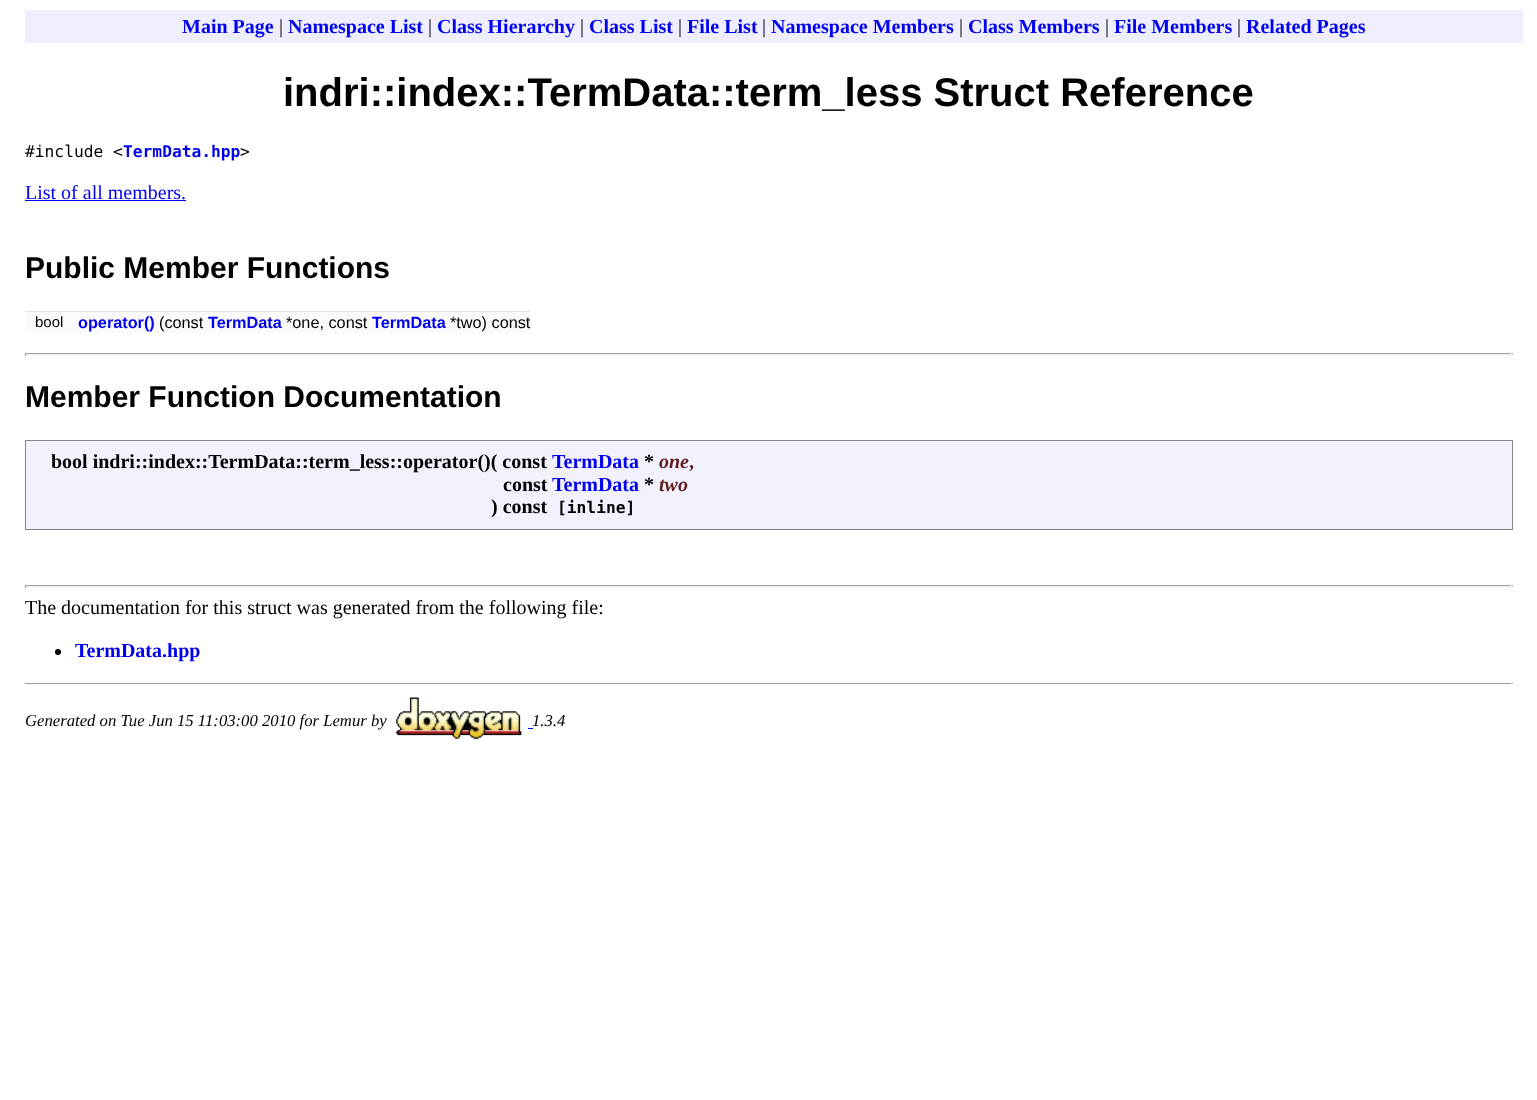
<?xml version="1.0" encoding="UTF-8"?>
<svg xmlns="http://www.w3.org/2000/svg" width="1537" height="1100">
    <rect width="100%" height="100%" fill="#FFFFFF"/>
    <rect x="25" y="10" width="1498" height="33" fill="#EEEEFF"/>
    <text x="182" y="33" font-family="Liberation Serif" font-size="20" font-weight="700" fill="#0000EE">Main Page</text>
    <text x="279" y="33" font-family="Liberation Serif" font-size="20" fill="#000000">|</text>
    <text x="288" y="33" font-family="Liberation Serif" font-size="20" font-weight="700" fill="#0000EE">Namespace List</text>
    <text x="428" y="33" font-family="Liberation Serif" font-size="20" fill="#000000">|</text>
    <text x="437" y="33" font-family="Liberation Serif" font-size="20" font-weight="700" fill="#0000EE">Class Hierarchy</text>
    <text x="580" y="33" font-family="Liberation Serif" font-size="20" fill="#000000">|</text>
    <text x="589" y="33" font-family="Liberation Serif" font-size="20" font-weight="700" fill="#0000EE">Class List</text>
    <text x="678" y="33" font-family="Liberation Serif" font-size="20" fill="#000000">|</text>
    <text x="687" y="33" font-family="Liberation Serif" font-size="20" font-weight="700" fill="#0000EE">File List</text>
    <text x="762" y="33" font-family="Liberation Serif" font-size="20" fill="#000000">|</text>
    <text x="771" y="33" font-family="Liberation Serif" font-size="20" font-weight="700" fill="#0000EE">Namespace Members</text>
    <text x="959" y="33" font-family="Liberation Serif" font-size="20" fill="#000000">|</text>
    <text x="968" y="33" font-family="Liberation Serif" font-size="20" font-weight="700" fill="#0000EE">Class Members</text>
    <text x="1105" y="33" font-family="Liberation Serif" font-size="20" fill="#000000">|</text>
    <text x="1114" y="33" font-family="Liberation Serif" font-size="20" font-weight="700" fill="#0000EE">File Members</text>
    <text x="1237" y="33" font-family="Liberation Serif" font-size="20" fill="#000000">|</text>
    <text x="1246" y="33" font-family="Liberation Serif" font-size="20" font-weight="700" fill="#0000EE">Related Pages</text>
    <text x="283" y="106" font-family="Liberation Sans" font-size="40" font-weight="700" fill="#000000">indri::index::TermData::term_less Struct Reference</text>
    <text x="25" y="157" font-family="DejaVu Sans Mono" font-size="16.25" fill="#000000">#include &lt;</text>
    <text x="123" y="157" font-family="DejaVu Sans Mono" font-size="16.25" font-weight="700" fill="#0000EE">TermData.hpp</text>
    <text x="240" y="157" font-family="DejaVu Sans Mono" font-size="16.25" fill="#000000">&gt;</text>
    <text x="25" y="199" font-family="Liberation Serif" font-size="20" fill="#0000EE">List of all members.</text>
    <rect x="25" y="200" width="161" height="1" fill="#0000EE"/>
    <text x="25" y="278" font-family="Liberation Sans" font-size="30" font-weight="700" fill="#000000">Public Member Functions</text>
    <rect x="25" y="312" width="505" height="21" fill="#FAFAFA"/>
    <rect x="25" y="311" width="505" height="1" fill="#E0E0E0"/>
    <text x="35" y="327" font-family="Liberation Sans" font-size="15" fill="#000000">bool</text>
    <text x="78" y="328" font-family="Liberation Sans" font-size="16.25" font-weight="700" fill="#0000EE">operator()</text>
    <text x="159" y="328" font-family="Liberation Sans" font-size="16.25" fill="#000000">(const</text>
    <text x="208" y="328" font-family="Liberation Sans" font-size="16.25" font-weight="700" fill="#0000EE">TermData</text>
    <text x="286" y="328" font-family="Liberation Sans" font-size="16.25" fill="#000000">*one, const</text>
    <text x="372" y="328" font-family="Liberation Sans" font-size="16.25" font-weight="700" fill="#0000EE">TermData</text>
    <text x="450" y="328" font-family="Liberation Sans" font-size="16.25" fill="#000000">*two) const</text>
    <rect x="25" y="353" width="1488" height="1" fill="#9F9F9F"/>
    <rect x="1511" y="353" width="1" height="3" fill="#EEEEEE"/>
    <rect x="25" y="354" width="1488" height="1" fill="#EEEEEE"/>
    <rect x="25" y="353" width="1" height="3" fill="#9F9F9F"/>
    <text x="25" y="407" font-family="Liberation Sans" font-size="30" font-weight="700" fill="#000000">Member Function Documentation</text>
    <rect x="25.5" y="440.5" width="1487" height="89" fill="#F2F2FF" stroke="#868686"/>
    <text x="51" y="468" font-family="Liberation Serif" font-size="20" font-weight="700" fill="#000000">bool indri::index::TermData::term_less::operator()( const</text>
    <text x="552" y="468" font-family="Liberation Serif" font-size="20" font-weight="700" fill="#0000EE">TermData</text>
    <text x="644" y="468" font-family="Liberation Serif" font-size="20" font-weight="700" fill="#000000">*</text>
    <text x="659" y="468" font-family="Liberation Serif" font-size="20" font-weight="700" font-style="italic" fill="#602020">one</text>
    <text x="689" y="468" font-family="Liberation Serif" font-size="20" font-weight="700" fill="#602020">,</text>
    <text x="503" y="491" font-family="Liberation Serif" font-size="20" font-weight="700" fill="#000000">const</text>
    <text x="552" y="491" font-family="Liberation Serif" font-size="20" font-weight="700" fill="#0000EE">TermData</text>
    <text x="644" y="491" font-family="Liberation Serif" font-size="20" font-weight="700" fill="#000000">*</text>
    <text x="659" y="491" font-family="Liberation Serif" font-size="20" font-weight="700" font-style="italic" fill="#602020">two</text>
    <text x="491" y="513" font-family="Liberation Serif" font-size="20" font-weight="700" fill="#000000">) const</text>
    <text x="557" y="513" font-family="DejaVu Sans Mono" font-size="16.25" font-weight="700" fill="#000000">[inline]</text>
    <rect x="25" y="585" width="1488" height="1" fill="#9F9F9F"/>
    <rect x="1511" y="585" width="1" height="3" fill="#EEEEEE"/>
    <rect x="25" y="586" width="1488" height="1" fill="#EEEEEE"/>
    <rect x="25" y="585" width="1" height="3" fill="#9F9F9F"/>
    <text x="25" y="614" font-family="Liberation Serif" font-size="20" fill="#000000">The documentation for this struct was generated from the following file:</text>
    <circle cx="58" cy="652" r="3" fill="#000000"/>
    <text x="75" y="657" font-family="Liberation Serif" font-size="20" font-weight="700" fill="#0000EE">TermData.hpp</text>
    <rect x="25" y="683" width="1488" height="1" fill="#9F9F9F"/>
    <rect x="1511" y="683" width="1" height="1" fill="#EEEEEE"/>
    <text x="25" y="726" font-family="Liberation Serif" font-size="16.7" font-style="italic" fill="#000000">Generated on Tue Jun 15 11:03:00 2010 for Lemur by</text>
    <image x="396" y="697" width="126" height="42" href="img_01.png"/>
    <text x="532" y="726" font-family="Liberation Serif" font-size="16.7" font-style="italic" fill="#000000">1.3.4</text>
    <rect x="528" y="728" width="5" height="1" fill="#0000EE"/>
</svg>
